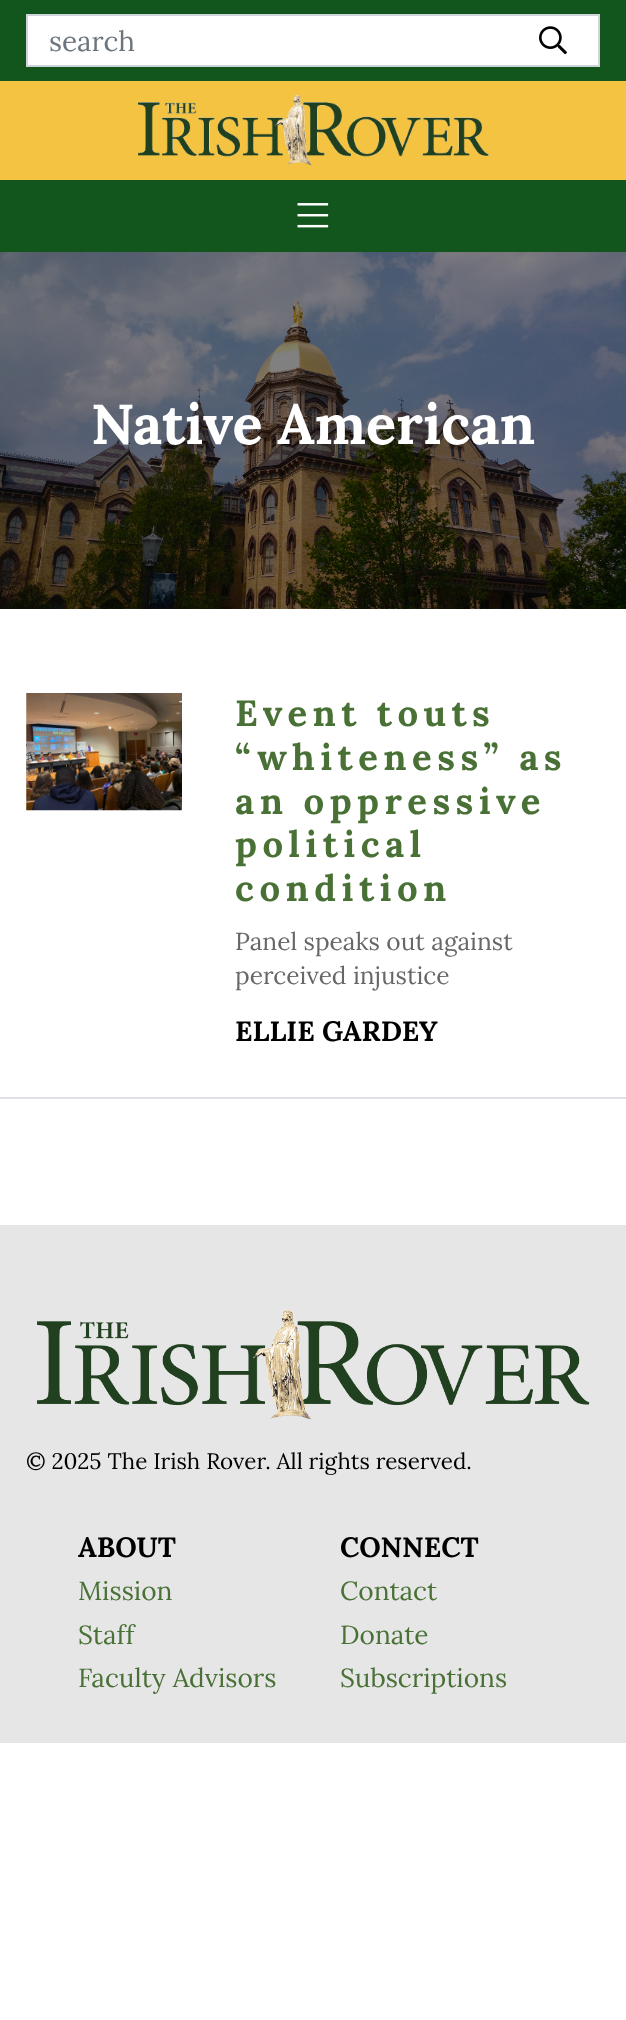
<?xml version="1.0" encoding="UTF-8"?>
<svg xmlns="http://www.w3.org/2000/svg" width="626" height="2020">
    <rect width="100%" height="100%" fill="#FFFFFF"/>
    <rect x="0" y="0" width="626" height="81" fill="#13561D"/>
    <rect x="27" y="15" width="572" height="51" fill="#FFFFFF" stroke="#CED4DA" stroke-width="2"/>
    <text x="49" y="51" font-family="Lora" font-size="28" fill="#6C757D">search</text>
    <image x="539" y="26" width="28" height="29" href="img_01.png"/>
    <rect x="0" y="81" width="626" height="99" fill="#F4C342"/>
    <image x="138" y="94" width="351" height="72" href="img_02.png"/>
    <rect x="0" y="180" width="626" height="72" fill="#13561D"/>
    <image x="297" y="203" width="32" height="25" href="img_03.png"/>
    <image x="0" y="252" width="626" height="357" href="img_04.png"/>
    <text x="91" y="444" font-family="Lora" font-size="56" font-weight="700" fill="#FFFFFF">Native American</text>
    <rect x="0" y="1097" width="626" height="2" fill="#DEE2E6"/>
    <image x="26" y="693" width="156" height="118" href="img_05.png"/>
    <text font-family="Lora" font-size="36.5" font-weight="700" letter-spacing="5.5" fill="#497136">
        <tspan x="235" y="726">Event touts</tspan>
        <tspan x="235" y="770">“whiteness” as</tspan>
        <tspan x="235" y="814">an oppressive</tspan>
        <tspan x="235" y="857">political</tspan>
        <tspan x="235" y="901">condition</tspan>
    </text>
    <text font-family="Lora" font-size="24.5" fill="#676767">
        <tspan x="235" y="950">Panel speaks out against</tspan>
        <tspan x="235" y="984">perceived injustice</tspan>
    </text>
    <text x="235" y="1041" font-family="Lora" font-size="28" font-weight="700" fill="#000000">ELLIE GARDEY</text>
    <rect x="0" y="1225" width="626" height="518" fill="#E6E6E6"/>
    <image x="37" y="1309" width="553" height="111" href="img_06.png"/>
    <text x="26" y="1469" font-family="Lora" font-size="22.4" fill="#000000">© 2025 The Irish Rover. All rights reserved.</text>
    <text x="78" y="1557" font-family="Lora" font-size="28" font-weight="700" fill="#000000">ABOUT</text>
    <text font-family="Lora" font-size="26.25" fill="#497136">
        <tspan x="78" y="1600">Mission</tspan>
        <tspan x="78" y="1644">Staff</tspan>
        <tspan x="78" y="1687">Faculty Advisors</tspan>
    </text>
    <text x="340" y="1557" font-family="Lora" font-size="28" font-weight="700" fill="#000000">CONNECT</text>
    <text font-family="Lora" font-size="26.25" fill="#497136">
        <tspan x="340" y="1600">Contact</tspan>
        <tspan x="340" y="1644">Donate</tspan>
        <tspan x="340" y="1687">Subscriptions</tspan>
    </text>
</svg>
